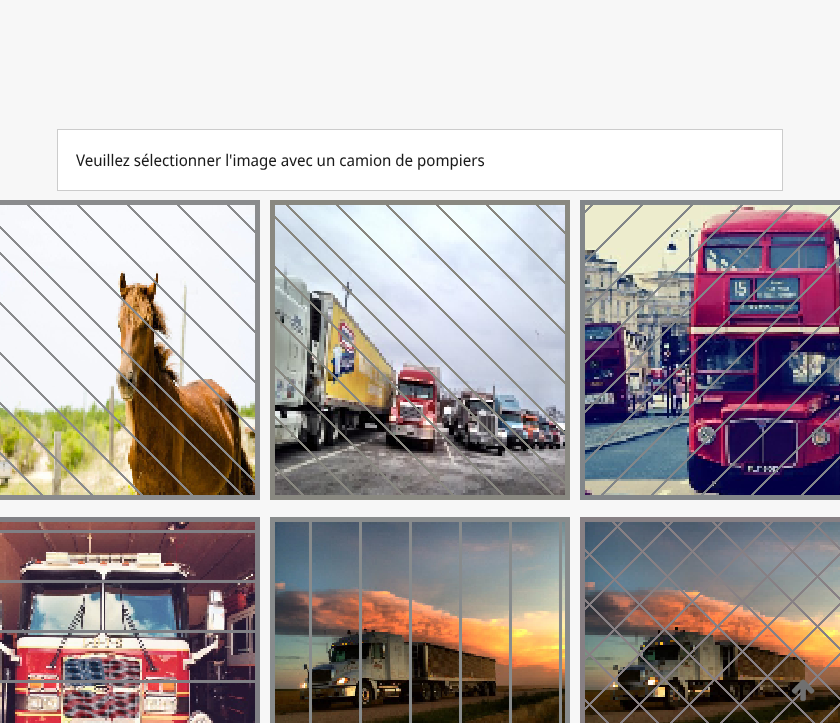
<?xml version="1.0" encoding="UTF-8"?>
<svg xmlns="http://www.w3.org/2000/svg" width="840" height="723">
    <rect width="100%" height="100%" fill="#F7F7F7"/>
    <rect x="57.5" y="129.5" width="725" height="61" fill="#FFFFFF" stroke="#CCCCCC"/>
    <text x="76" y="166" font-family="Noto Sans Display" font-size="16" fill="#1A1A1A">Veuillez sélectionner l'image avec un camion de pompiers</text>
    <image x="0" y="200" width="260" height="300" href="img_01.png"/>
    <image x="270" y="200" width="300" height="300" href="img_02.png"/>
    <image x="580" y="200" width="260" height="300" href="img_03.png"/>
    <image x="0" y="517" width="260" height="206" href="img_04.png"/>
    <image x="270" y="517" width="300" height="206" href="img_05.png"/>
    <image x="580" y="517" width="260" height="206" href="img_06.png"/>
    <image x="791" y="679" width="24" height="22" href="img_07.png"/>
</svg>
